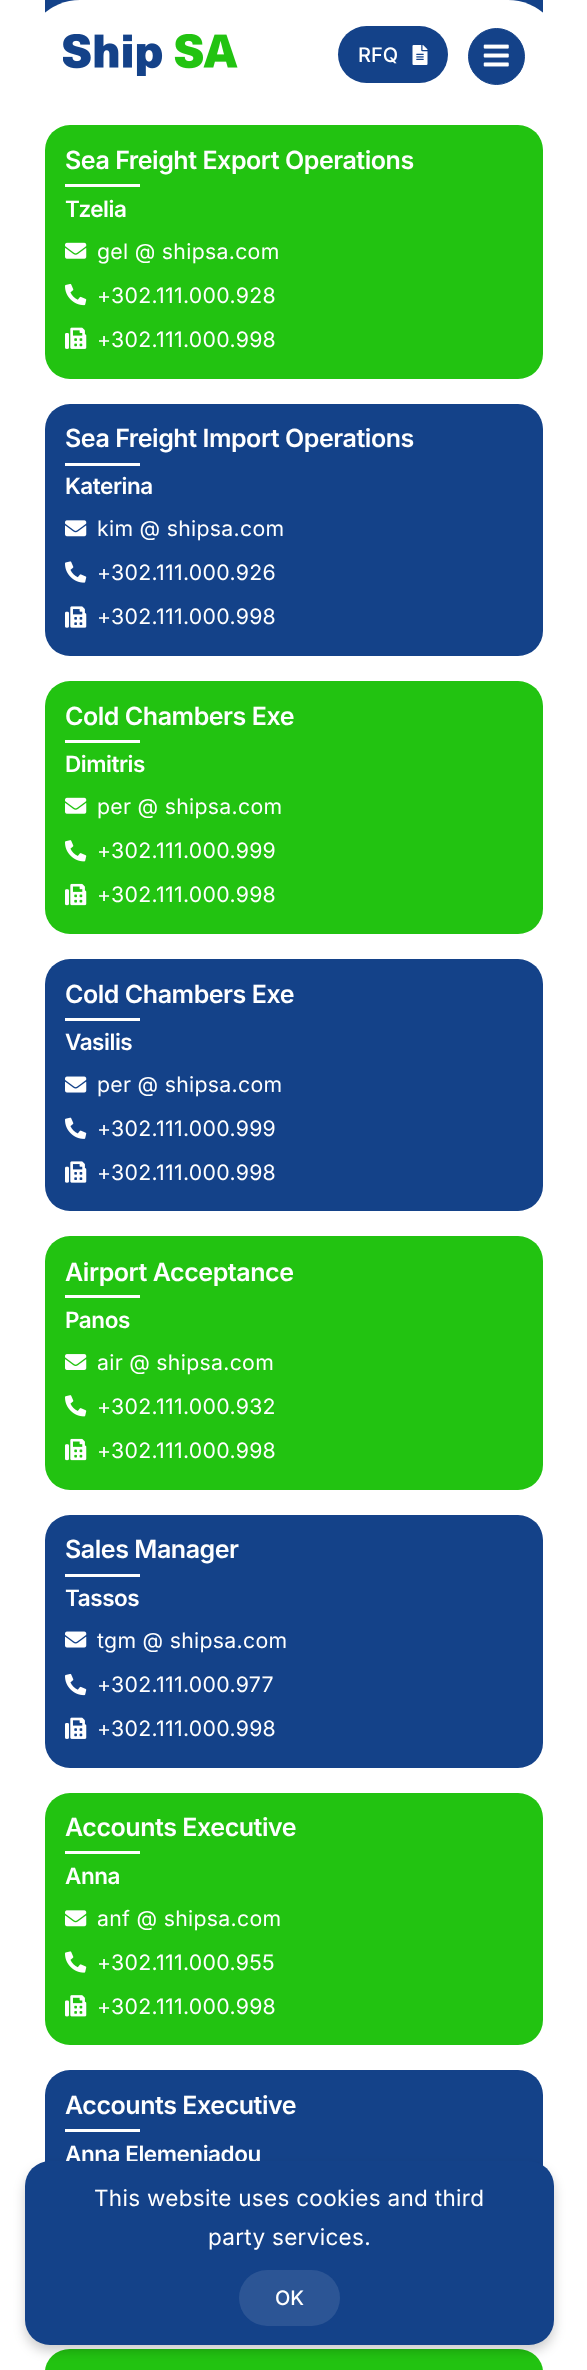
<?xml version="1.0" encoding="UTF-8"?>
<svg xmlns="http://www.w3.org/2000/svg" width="587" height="2370">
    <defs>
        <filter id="blur1" x="-50%" y="-200%" width="200%" height="500%"><feGaussianBlur stdDeviation="6"/></filter>
    </defs>
    <rect width="100%" height="100%" fill="#FFFFFF"/>
    <rect x="45" y="-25" width="498" height="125" rx="25" fill="#144289"/>
    <rect x="25" y="0" width="538" height="110" rx="55" fill="#FFFFFF"/>
    <image x="63" y="34" width="175" height="42" href="img_01.png"/>
    <rect x="338" y="26" width="110" height="57" rx="28.5" fill="#144289"/>
    <text x="358" y="62" font-family="Inter" font-size="20" font-weight="500" fill="#FFFFFF">RFQ</text>
    <image x="412" y="45" width="16" height="20" href="img_02.png"/>
    <circle cx="496.5" cy="56.5" r="28" fill="#144289" stroke="#144289"/>
    <image x="483" y="44" width="26" height="23" href="img_03.png"/>
    <rect x="45" y="125" width="498" height="254" rx="25" fill="#22C311"/>
    <text x="65" y="169" font-family="Inter" font-size="25" font-weight="600" letter-spacing="-0.45" fill="#FFFFFF">Sea Freight Export Operations</text>
    <rect x="65" y="184" width="75" height="3" fill="#FFFFFF"/>
    <text x="65" y="217" font-family="Inter" font-size="22.5" font-weight="600" letter-spacing="-0.45" fill="#FFFFFF">Tzelia</text>
    <image x="65" y="242" width="22" height="17" href="img_04.png"/>
    <text x="97" y="259" font-family="Inter" font-size="21.25" letter-spacing="0.3" fill="#FFFFFF">gel @ shipsa.com</text>
    <image x="65" y="283" width="22" height="23" href="img_05.png"/>
    <text x="97" y="303" font-family="Inter" font-size="21.25" letter-spacing="0.3" fill="#FFFFFF">+302.111.000.928</text>
    <image x="65" y="327" width="22" height="22" href="img_06.png"/>
    <text x="97" y="347" font-family="Inter" font-size="21.25" letter-spacing="0.3" fill="#FFFFFF">+302.111.000.998</text>
    <rect x="45" y="404" width="498" height="252" rx="25" fill="#144289"/>
    <text x="65" y="447" font-family="Inter" font-size="25" font-weight="600" letter-spacing="-0.45" fill="#FFFFFF">Sea Freight Import Operations</text>
    <rect x="65" y="463" width="75" height="3" fill="#FFFFFF"/>
    <text x="65" y="494" font-family="Inter" font-size="22.5" font-weight="600" letter-spacing="-0.45" fill="#FFFFFF">Katerina</text>
    <image x="65" y="520" width="22" height="17" href="img_07.png"/>
    <text x="97" y="536" font-family="Inter" font-size="21.25" letter-spacing="0.3" fill="#FFFFFF">kim @ shipsa.com</text>
    <image x="65" y="561" width="22" height="22" href="img_08.png"/>
    <text x="97" y="580" font-family="Inter" font-size="21.25" letter-spacing="0.3" fill="#FFFFFF">+302.111.000.926</text>
    <image x="65" y="606" width="22" height="22" href="img_09.png"/>
    <text x="97" y="624" font-family="Inter" font-size="21.25" letter-spacing="0.3" fill="#FFFFFF">+302.111.000.998</text>
    <rect x="45" y="681" width="498" height="253" rx="25" fill="#22C311"/>
    <text x="65" y="725" font-family="Inter" font-size="25" font-weight="600" letter-spacing="-0.45" fill="#FFFFFF">Cold Chambers Exe</text>
    <rect x="65" y="740" width="75" height="3" fill="#FFFFFF"/>
    <text x="65" y="772" font-family="Inter" font-size="22.5" font-weight="600" letter-spacing="-0.45" fill="#FFFFFF">Dimitris</text>
    <image x="65" y="797" width="22" height="17" href="img_04.png"/>
    <text x="97" y="814" font-family="Inter" font-size="21.25" letter-spacing="0.3" fill="#FFFFFF">per @ shipsa.com</text>
    <image x="65" y="840" width="22" height="22" href="img_10.png"/>
    <text x="97" y="858" font-family="Inter" font-size="21.25" letter-spacing="0.3" fill="#FFFFFF">+302.111.000.999</text>
    <image x="65" y="883" width="22" height="23" href="img_11.png"/>
    <text x="97" y="902" font-family="Inter" font-size="21.25" letter-spacing="0.3" fill="#FFFFFF">+302.111.000.998</text>
    <rect x="45" y="959" width="498" height="252" rx="25" fill="#144289"/>
    <text x="65" y="1003" font-family="Inter" font-size="25" font-weight="600" letter-spacing="-0.45" fill="#FFFFFF">Cold Chambers Exe</text>
    <rect x="65" y="1018" width="75" height="3" fill="#FFFFFF"/>
    <text x="65" y="1050" font-family="Inter" font-size="22.5" font-weight="600" letter-spacing="-0.45" fill="#FFFFFF">Vasilis</text>
    <image x="65" y="1076" width="22" height="17" href="img_12.png"/>
    <text x="97" y="1092" font-family="Inter" font-size="21.25" letter-spacing="0.3" fill="#FFFFFF">per @ shipsa.com</text>
    <image x="65" y="1117" width="22" height="22" href="img_13.png"/>
    <text x="97" y="1136" font-family="Inter" font-size="21.25" letter-spacing="0.3" fill="#FFFFFF">+302.111.000.999</text>
    <image x="65" y="1161" width="22" height="22" href="img_09.png"/>
    <text x="97" y="1180" font-family="Inter" font-size="21.25" letter-spacing="0.3" fill="#FFFFFF">+302.111.000.998</text>
    <rect x="45" y="1236" width="498" height="254" rx="25" fill="#22C311"/>
    <text x="65" y="1281" font-family="Inter" font-size="25" font-weight="600" letter-spacing="-0.45" fill="#FFFFFF">Airport Acceptance</text>
    <rect x="65" y="1295" width="75" height="3" fill="#FFFFFF"/>
    <text x="65" y="1328" font-family="Inter" font-size="22.5" font-weight="600" letter-spacing="-0.45" fill="#FFFFFF">Panos</text>
    <image x="65" y="1354" width="22" height="16" href="img_14.png"/>
    <text x="97" y="1370" font-family="Inter" font-size="21.25" letter-spacing="0.3" fill="#FFFFFF">air @ shipsa.com</text>
    <image x="65" y="1395" width="22" height="22" href="img_10.png"/>
    <text x="97" y="1414" font-family="Inter" font-size="21.25" letter-spacing="0.3" fill="#FFFFFF">+302.111.000.932</text>
    <image x="65" y="1438" width="22" height="23" href="img_11.png"/>
    <text x="97" y="1458" font-family="Inter" font-size="21.25" letter-spacing="0.3" fill="#FFFFFF">+302.111.000.998</text>
    <rect x="45" y="1515" width="498" height="253" rx="25" fill="#144289"/>
    <text x="65" y="1558" font-family="Inter" font-size="25" font-weight="600" letter-spacing="-0.45" fill="#FFFFFF">Sales Manager</text>
    <rect x="65" y="1574" width="75" height="3" fill="#FFFFFF"/>
    <text x="65" y="1606" font-family="Inter" font-size="22.5" font-weight="600" letter-spacing="-0.45" fill="#FFFFFF">Tassos</text>
    <image x="65" y="1631" width="22" height="17" href="img_12.png"/>
    <text x="97" y="1648" font-family="Inter" font-size="21.25" letter-spacing="0.3" fill="#FFFFFF">tgm @ shipsa.com</text>
    <image x="65" y="1673" width="22" height="23" href="img_15.png"/>
    <text x="97" y="1692" font-family="Inter" font-size="21.25" letter-spacing="0.3" fill="#FFFFFF">+302.111.000.977</text>
    <image x="65" y="1717" width="22" height="22" href="img_16.png"/>
    <text x="97" y="1736" font-family="Inter" font-size="21.25" letter-spacing="0.3" fill="#FFFFFF">+302.111.000.998</text>
    <rect x="45" y="1793" width="498" height="252" rx="25" fill="#22C311"/>
    <text x="65" y="1836" font-family="Inter" font-size="25" font-weight="600" letter-spacing="-0.45" fill="#FFFFFF">Accounts Executive</text>
    <rect x="65" y="1851" width="75" height="3" fill="#FFFFFF"/>
    <text x="65" y="1884" font-family="Inter" font-size="22.5" font-weight="600" letter-spacing="-0.45" fill="#FFFFFF">Anna</text>
    <image x="65" y="1910" width="22" height="17" href="img_17.png"/>
    <text x="97" y="1926" font-family="Inter" font-size="21.25" letter-spacing="0.3" fill="#FFFFFF">anf @ shipsa.com</text>
    <image x="65" y="1951" width="22" height="22" href="img_18.png"/>
    <text x="97" y="1970" font-family="Inter" font-size="21.25" letter-spacing="0.3" fill="#FFFFFF">+302.111.000.955</text>
    <image x="65" y="1995" width="22" height="22" href="img_19.png"/>
    <text x="97" y="2014" font-family="Inter" font-size="21.25" letter-spacing="0.3" fill="#FFFFFF">+302.111.000.998</text>
    <rect x="45" y="2070" width="498" height="254" rx="25" fill="#144289"/>
    <text x="65" y="2114" font-family="Inter" font-size="25" font-weight="600" letter-spacing="-0.45" fill="#FFFFFF">Accounts Executive</text>
    <rect x="65" y="2129" width="75" height="3" fill="#FFFFFF"/>
    <text x="65" y="2162" font-family="Inter" font-size="22.5" font-weight="600" letter-spacing="-0.45" fill="#FFFFFF">Anna Elemeniadou</text>
    <rect x="45" y="2349" width="498" height="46" rx="25" fill="#22C311"/>
    <rect x="25" y="2168" width="529" height="183" rx="25" fill="#000000" fill-opacity="0.2" filter="url(#blur1)"/>
    <rect x="25" y="2161" width="529" height="184" rx="25" fill="#144289"/>
    <text x="94" y="2206" font-family="Inter" font-size="22.5" letter-spacing="0.3" fill="#FFFFFF">This website uses cookies and third</text>
    <text x="208" y="2245" font-family="Inter" font-size="22.5" letter-spacing="0.3" fill="#FFFFFF">party services.</text>
    <rect x="239" y="2270" width="101" height="56" rx="28" fill="#2C5595"/>
    <text x="275" y="2305" font-family="Inter" font-size="20" font-weight="500" fill="#FFFFFF">OK</text>
</svg>
